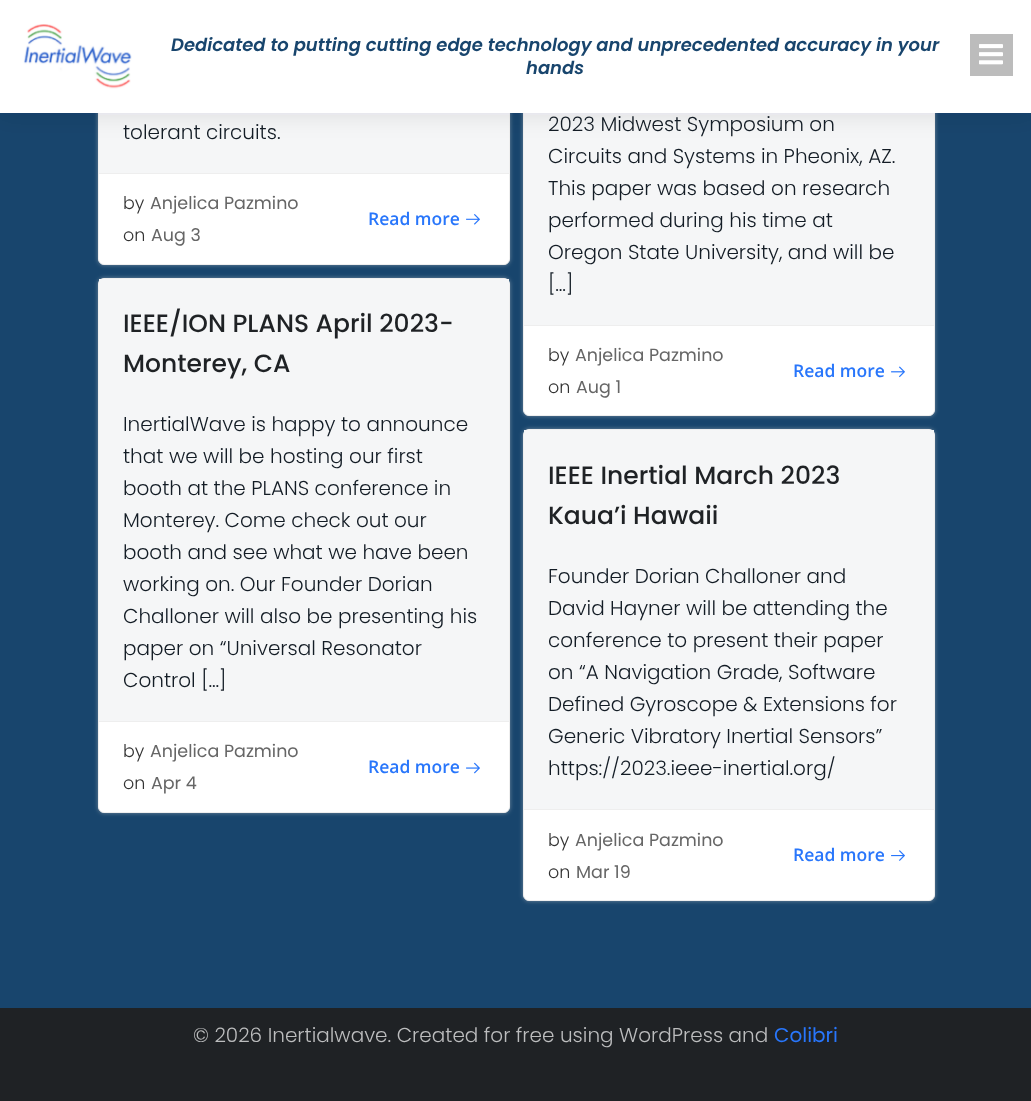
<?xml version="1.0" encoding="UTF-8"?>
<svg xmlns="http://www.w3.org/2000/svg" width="1031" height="1101">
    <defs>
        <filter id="blur1" x="-50%" y="-200%" width="200%" height="500%"><feGaussianBlur stdDeviation="2"/></filter>
        <filter id="blur2" x="-50%" y="-200%" width="200%" height="500%"><feGaussianBlur stdDeviation="12.5"/></filter>
    </defs>
    <rect width="100%" height="100%" fill="#18456D"/>
    <rect x="98" y="-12" width="412" height="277" rx="6" fill="#CCCCCC" fill-opacity="0.5" filter="url(#blur1)"/>
    <rect x="98.5" y="-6.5" width="411" height="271" rx="5.5" fill="#FFFFFF" stroke="#EEEEEE"/>
    <rect x="99" y="113" width="410" height="60" fill="#F5F6F7"/>
    <rect x="523" y="-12" width="412" height="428" rx="6" fill="#CCCCCC" fill-opacity="0.5" filter="url(#blur1)"/>
    <rect x="523.5" y="-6.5" width="411" height="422" rx="5.5" fill="#FFFFFF" stroke="#EEEEEE"/>
    <rect x="524" y="113" width="410" height="212" fill="#F5F6F7"/>
    <rect x="-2" y="-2" width="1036" height="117" fill="#1F2225" fill-opacity="0.1" filter="url(#blur2)"/>
    <rect x="0" y="0" width="1031" height="113" fill="#FFFFFF"/>
    <image x="23" y="24" width="109" height="65" href="img_01.png"/>
    <text x="171" y="51" font-family="Poppins" font-size="18" font-weight="600" font-style="italic" fill="#18456D">Dedicated to putting cutting edge technology and unprecedented accuracy in your</text>
    <text x="526" y="74" font-family="Poppins" font-size="18" font-weight="600" font-style="italic" fill="#18456D">hands</text>
    <rect x="970" y="34" width="43" height="42" fill="#BCBCBC"/>
    <image x="979" y="44" width="24" height="21" href="img_02.png"/>
    <text x="123" y="139" font-family="Poppins" font-size="20" font-weight="300" fill="#131C25">tolerant circuits.</text>
    <rect x="99" y="173" width="410" height="1" fill="#EEEEEE"/>
    <text x="123" y="209" font-family="Poppins" font-size="17.5" font-weight="300" fill="#333333">by</text>
    <text x="150" y="209" font-family="Poppins" font-size="17.5" fill="#666666">Anjelica Pazmino</text>
    <text x="123" y="241" font-family="Poppins" font-size="17.5" font-weight="300" fill="#333333">on</text>
    <text x="151" y="241" font-family="Poppins" font-size="17.5" fill="#666666">Aug 3</text>
    <text x="368" y="225" font-family="Open Sans" font-size="17.5" font-weight="600" fill="#2876FB">Read more</text>
    <image x="466" y="214" width="14" height="11" href="img_03.png"/>
    <text font-family="Poppins" font-size="20" font-weight="300" fill="#131C25">
        <tspan x="548" y="131">2023 Midwest Symposium on</tspan>
        <tspan x="548" y="163">Circuits and Systems in Pheonix, AZ.</tspan>
        <tspan x="548" y="195">This paper was based on research</tspan>
        <tspan x="548" y="227">performed during his time at</tspan>
        <tspan x="548" y="259">Oregon State University, and will be</tspan>
        <tspan x="548" y="291">[…]</tspan>
    </text>
    <rect x="524" y="325" width="410" height="1" fill="#EEEEEE"/>
    <text x="548" y="361" font-family="Poppins" font-size="17.5" font-weight="300" fill="#333333">by</text>
    <text x="575" y="361" font-family="Poppins" font-size="17.5" fill="#666666">Anjelica Pazmino</text>
    <text x="548" y="393" font-family="Poppins" font-size="17.5" font-weight="300" fill="#333333">on</text>
    <text x="576" y="393" font-family="Poppins" font-size="17.5" fill="#666666">Aug 1</text>
    <text x="793" y="377" font-family="Open Sans" font-size="17.5" font-weight="600" fill="#2876FB">Read more</text>
    <image x="891" y="366" width="14" height="12" href="img_04.png"/>
    <rect x="98" y="278" width="412" height="535" rx="6" fill="#CCCCCC" fill-opacity="0.5" filter="url(#blur1)"/>
    <rect x="98.5" y="278.5" width="411" height="534" rx="5.5" fill="#FFFFFF" stroke="#EEEEEE"/>
    <rect x="99" y="279" width="410" height="442" fill="#F5F6F7"/>
    <text font-family="Poppins" font-size="25" font-weight="500" fill="#1F2225">
        <tspan x="123" y="332">IEEE/ION PLANS April 2023-</tspan>
        <tspan x="123" y="372">Monterey, CA</tspan>
    </text>
    <text font-family="Poppins" font-size="20" font-weight="300" fill="#131C25">
        <tspan x="123" y="431">InertialWave is happy to announce</tspan>
        <tspan x="123" y="463">that we will be hosting our first</tspan>
        <tspan x="123" y="495">booth at the PLANS conference in</tspan>
        <tspan x="123" y="527">Monterey. Come check out our</tspan>
        <tspan x="123" y="559">booth and see what we have been</tspan>
        <tspan x="123" y="591">working on. Our Founder Dorian</tspan>
        <tspan x="123" y="623">Challoner will also be presenting his</tspan>
        <tspan x="123" y="655">paper on “Universal Resonator</tspan>
        <tspan x="123" y="687">Control […]</tspan>
    </text>
    <rect x="99" y="721" width="410" height="1" fill="#EEEEEE"/>
    <text x="123" y="757" font-family="Poppins" font-size="17.5" font-weight="300" fill="#333333">by</text>
    <text x="150" y="757" font-family="Poppins" font-size="17.5" fill="#666666">Anjelica Pazmino</text>
    <text x="123" y="789" font-family="Poppins" font-size="17.5" font-weight="300" fill="#333333">on</text>
    <text x="151" y="789" font-family="Poppins" font-size="17.5" fill="#666666">Apr 4</text>
    <text x="368" y="773" font-family="Open Sans" font-size="17.5" font-weight="600" fill="#2876FB">Read more</text>
    <image x="466" y="762" width="14" height="12" href="img_05.png"/>
    <rect x="523" y="429" width="412" height="472" rx="6" fill="#CCCCCC" fill-opacity="0.5" filter="url(#blur1)"/>
    <rect x="523.5" y="429.5" width="411" height="471" rx="5.5" fill="#FFFFFF" stroke="#EEEEEE"/>
    <rect x="524" y="430" width="410" height="379" fill="#F5F6F7"/>
    <text font-family="Poppins" font-size="25" font-weight="500" fill="#1F2225">
        <tspan x="548" y="484">IEEE Inertial March 2023</tspan>
        <tspan x="548" y="524">Kaua’i Hawaii</tspan>
    </text>
    <text font-family="Poppins" font-size="20" font-weight="300" fill="#131C25">
        <tspan x="548" y="583">Founder Dorian Challoner and</tspan>
        <tspan x="548" y="615">David Hayner will be attending the</tspan>
        <tspan x="548" y="647">conference to present their paper</tspan>
        <tspan x="548" y="679">on “A Navigation Grade, Software</tspan>
        <tspan x="548" y="711">Defined Gyroscope &amp; Extensions for</tspan>
        <tspan x="548" y="743">Generic Vibratory Inertial Sensors”</tspan>
        <tspan x="548" y="775">https://2023.ieee-inertial.org/</tspan>
    </text>
    <rect x="524" y="809" width="410" height="1" fill="#EEEEEE"/>
    <text x="548" y="846" font-family="Poppins" font-size="17.5" font-weight="300" fill="#333333">by</text>
    <text x="575" y="846" font-family="Poppins" font-size="17.5" fill="#666666">Anjelica Pazmino</text>
    <text x="548" y="878" font-family="Poppins" font-size="17.5" font-weight="300" fill="#333333">on</text>
    <text x="576" y="878" font-family="Poppins" font-size="17.5" fill="#666666">Mar 19</text>
    <text x="793" y="861" font-family="Open Sans" font-size="17.5" font-weight="600" fill="#2876FB">Read more</text>
    <image x="891" y="850" width="14" height="11" href="img_06.png"/>
    <rect x="0" y="1008" width="1031" height="93" fill="#1F2225"/>
    <text x="193" y="1042" font-family="Poppins" font-size="20" font-weight="300" fill="#BCBDBE">© 2026 Inertialwave. Created for free using WordPress and</text>
    <text x="774" y="1042" font-family="Poppins" font-size="20" fill="#2876FB">Colibri</text>
</svg>
